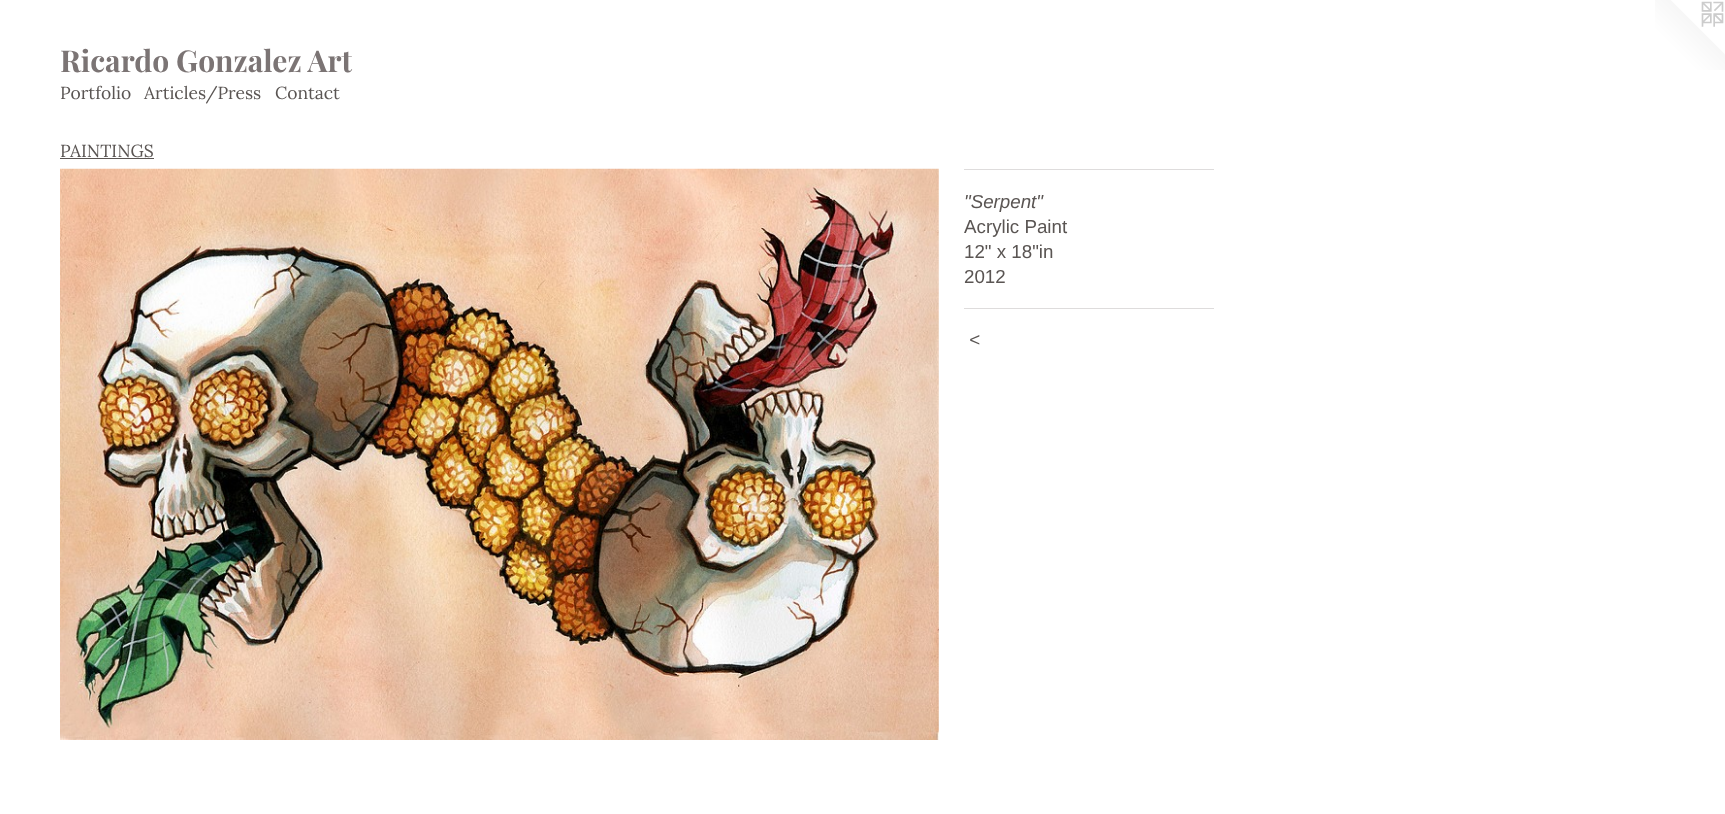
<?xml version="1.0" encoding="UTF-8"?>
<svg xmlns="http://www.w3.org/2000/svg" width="1725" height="814">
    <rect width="100%" height="100%" fill="#FFFFFF"/>
    <text x="60" y="72" font-family="Playfair Display" font-size="30" font-weight="700" fill="#7B7474">Ricardo Gonzalez Art</text>
    <image x="1655" y="0" width="70" height="70" href="img_01.png"/>
    <text x="60" y="99" font-family="Lora" font-size="17.5" fill="#5A5553">Portfolio</text>
    <text x="144" y="99" font-family="Lora" font-size="17.5" fill="#5A5553">Articles/Press</text>
    <text x="275" y="99" font-family="Lora" font-size="17.5" fill="#5A5553">Contact</text>
    <text x="60" y="157" font-family="Lora" font-size="17.5" fill="#5A5553">PAINTINGS</text>
    <rect x="60" y="158" width="94" height="1" fill="#5A5553"/>
    <image x="60" y="168" width="879" height="572" href="img_02.png"/>
    <rect x="964" y="169" width="250" height="1" fill="#DEDCDC"/>
    <text x="964" y="208" font-family="Liberation Sans" font-size="18.75" font-style="italic" fill="#5A5553">"Serpent"</text>
    <text font-family="Liberation Sans" font-size="18.75" fill="#5A5553">
        <tspan x="964" y="233">Acrylic Paint</tspan>
        <tspan x="964" y="258">12" x 18"in</tspan>
        <tspan x="964" y="283">2012</tspan>
    </text>
    <rect x="964" y="308" width="250" height="1" fill="#DEDCDC"/>
    <text x="969" y="346" font-family="Liberation Sans" font-size="18.75" font-style="italic" letter-spacing="1" fill="#5A5553">&lt;</text>
</svg>
